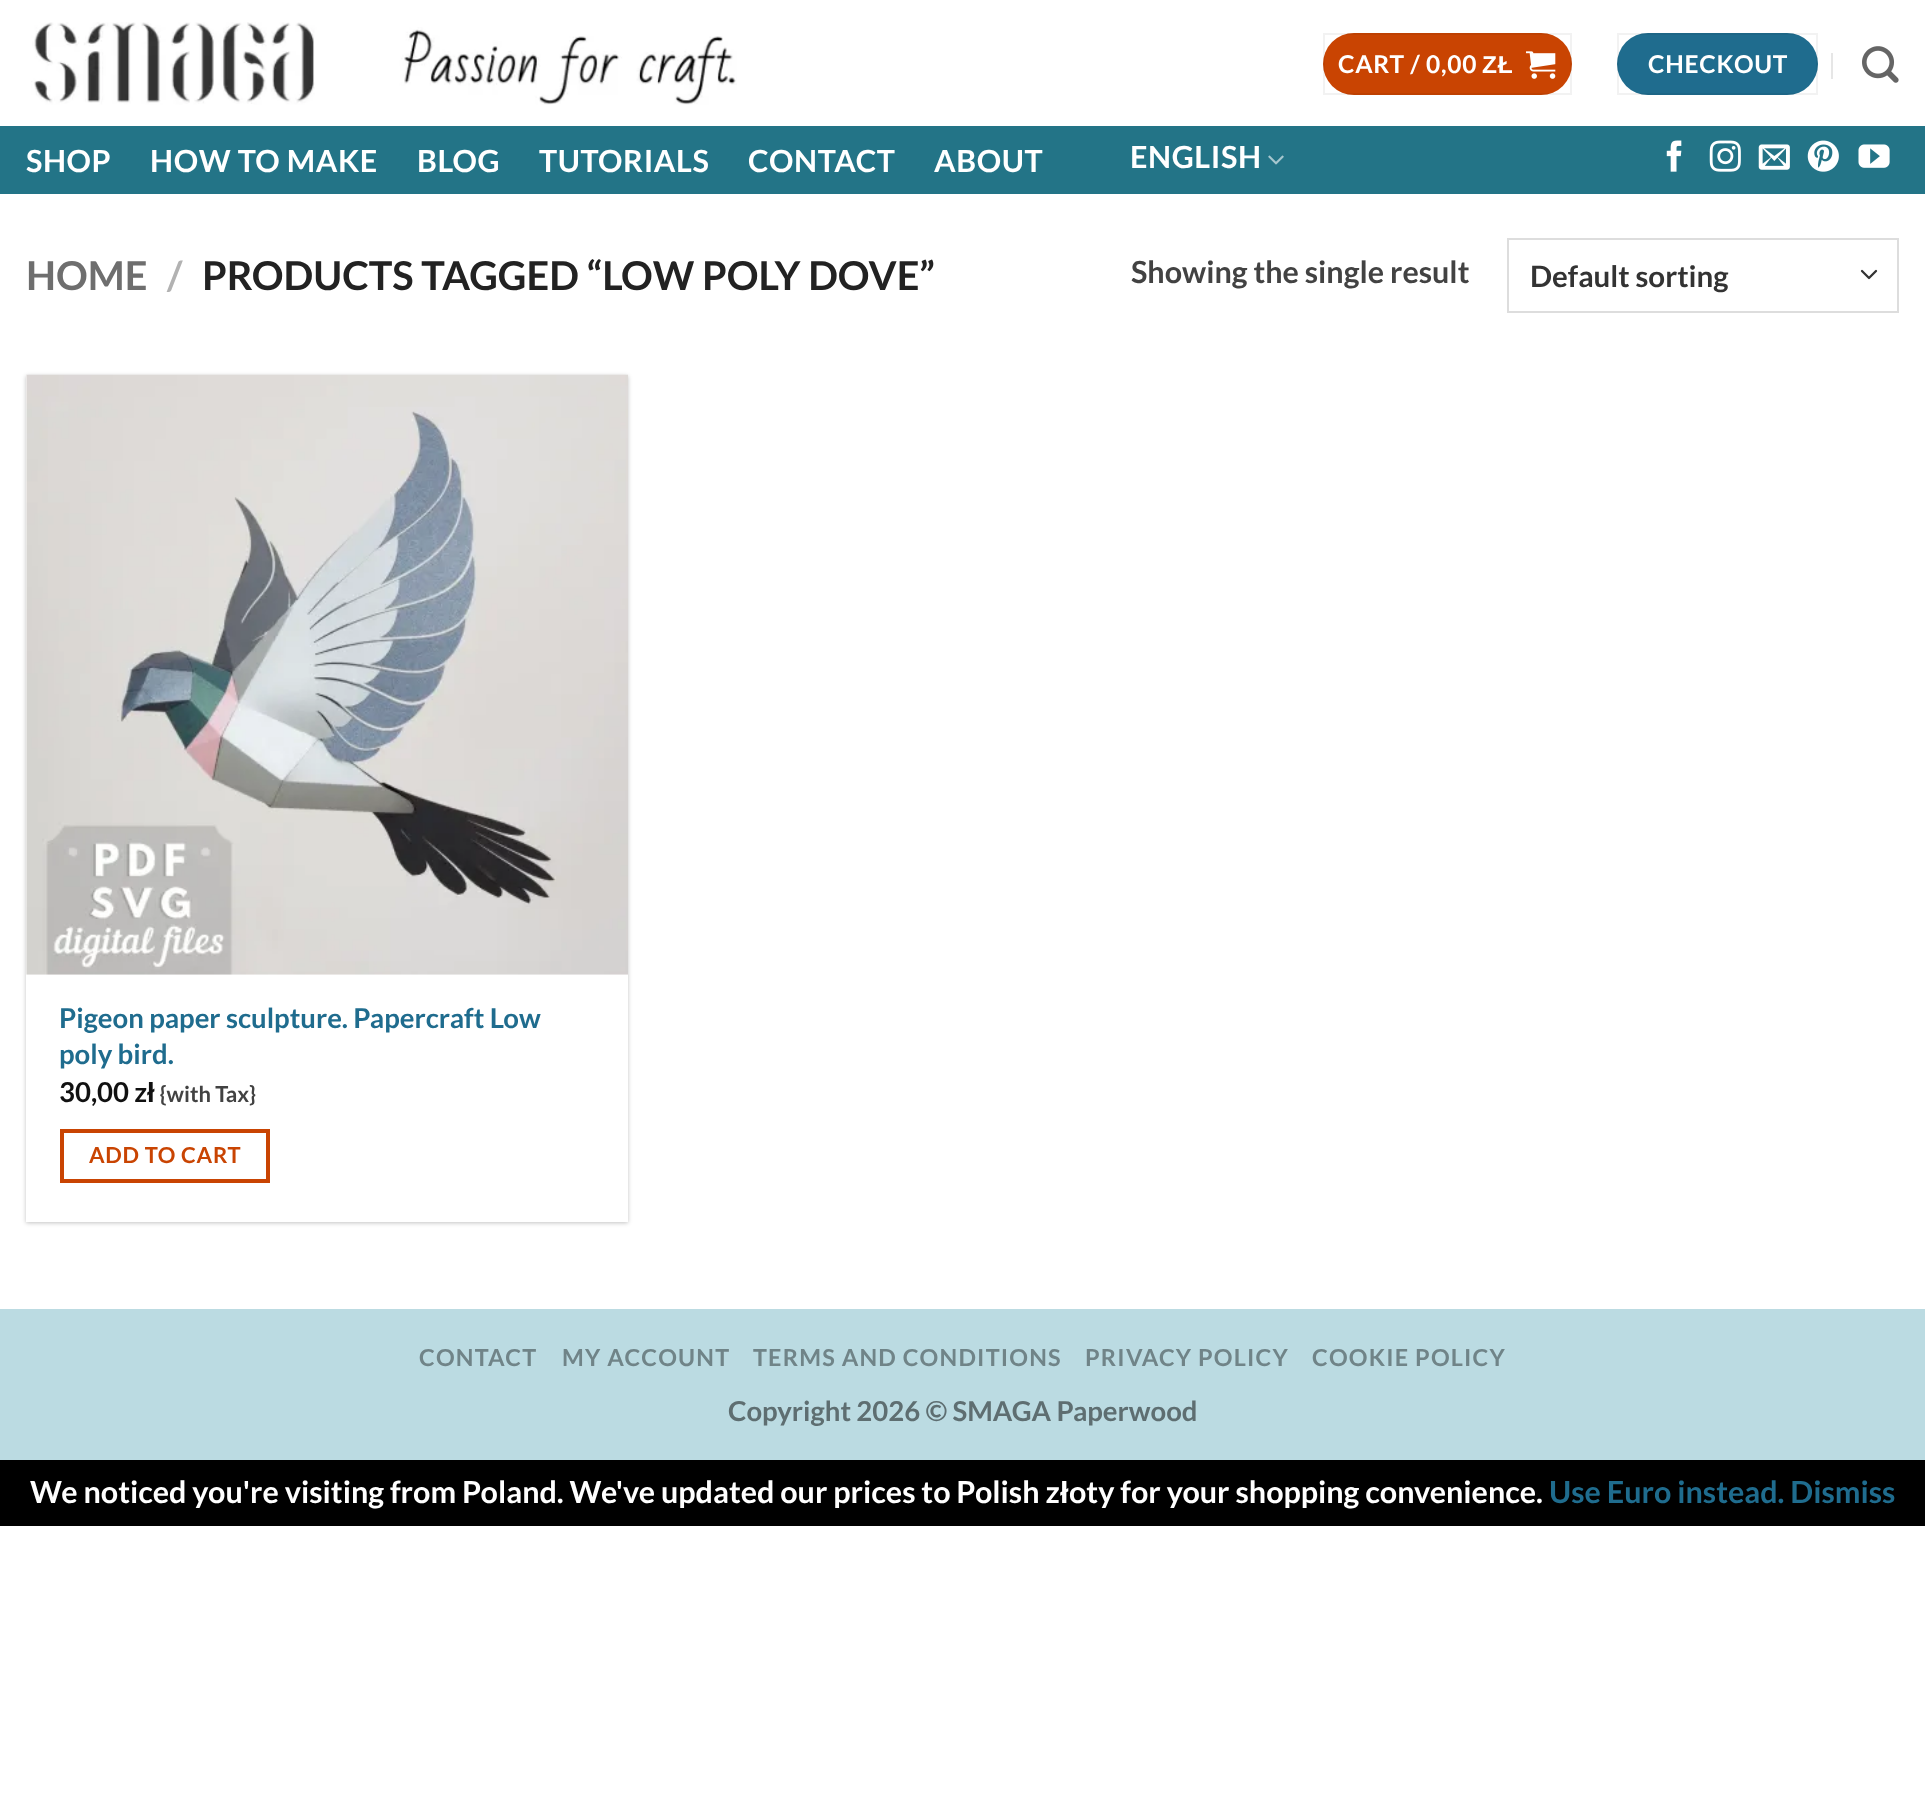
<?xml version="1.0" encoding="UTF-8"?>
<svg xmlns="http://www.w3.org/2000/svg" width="1925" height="1813">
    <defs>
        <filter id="blur1" x="-50%" y="-200%" width="200%" height="500%"><feGaussianBlur stdDeviation="2"/></filter>
    </defs>
    <rect width="100%" height="100%" fill="#FFFFFF"/>
    <image x="31" y="22" width="706" height="83" href="img_01.png"/>
    <rect x="1323" y="33" width="249" height="62" rx="31" fill="#C94402"/>
    <rect x="1324" y="34" width="247" height="60" fill="none" stroke="#000000" stroke-opacity="0.05" stroke-width="2"/>
    <text x="1338" y="73" font-family="Lato" font-size="24.5" font-weight="700" letter-spacing="0.75" fill="#FFFFFF">CART / 0,00</text>
    <text x="1482" y="73" font-family="Liberation Sans" font-size="24.5" font-weight="700" letter-spacing="0.75" fill="#FFFFFF">ZŁ</text>
    <image x="1526" y="51" width="30" height="28" href="img_02.png"/>
    <rect x="1617" y="33" width="201" height="62" rx="31" fill="#1F6C8E"/>
    <rect x="1618" y="34" width="199" height="60" fill="none" stroke="#000000" stroke-opacity="0.05" stroke-width="2"/>
    <text x="1648" y="73" font-family="Lato" font-size="24.5" font-weight="700" letter-spacing="0.75" fill="#FFFFFF">CHECKOUT</text>
    <rect x="1831" y="53" width="2" height="26" fill="#E6E6E6"/>
    <image x="1862" y="46" width="37" height="37" href="img_03.png"/>
    <rect x="0" y="126" width="1925" height="68" fill="#237487"/>
    <text x="26" y="172" font-family="Lato" font-size="30.5" font-weight="700" letter-spacing="0.6" fill="#FFFFFF">SHOP</text>
    <text x="150" y="172" font-family="Lato" font-size="30.5" font-weight="700" letter-spacing="0.6" fill="#FFFFFF">HOW TO MAKE</text>
    <text x="417" y="172" font-family="Lato" font-size="30.5" font-weight="700" letter-spacing="0.6" fill="#FFFFFF">BLOG</text>
    <text x="539" y="172" font-family="Lato" font-size="30.5" font-weight="700" letter-spacing="0.6" fill="#FFFFFF">TUTORIALS</text>
    <text x="748" y="172" font-family="Lato" font-size="30.5" font-weight="700" letter-spacing="0.6" fill="#FFFFFF">CONTACT</text>
    <text x="934" y="172" font-family="Lato" font-size="30.5" font-weight="700" letter-spacing="0.6" fill="#FFFFFF">ABOUT</text>
    <text x="1130" y="168" font-family="Lato" font-size="30.5" font-weight="700" letter-spacing="0.6" fill="#FFFFFF">ENGLISH</text>
    <image x="1268" y="155" width="16" height="10" href="img_04.png"/>
    <image x="1666" y="140" width="16" height="32" href="img_05.png"/>
    <image x="1709" y="140" width="32" height="32" href="img_06.png"/>
    <image x="1758" y="144" width="32" height="26" href="img_07.png"/>
    <image x="1807" y="140" width="32" height="32" href="img_08.png"/>
    <image x="1858" y="144" width="32" height="24" href="img_09.png"/>
    <text x="26" y="290" font-family="Lato" font-size="39.7" font-weight="700" fill="#6E6E6E">HOME</text>
    <text x="167" y="290" font-family="Lato" font-size="39.7" font-weight="700" fill="#B2B2B2">/</text>
    <text x="202" y="290" font-family="Lato" font-size="39.7" font-weight="700" fill="#222222">PRODUCTS TAGGED “LOW POLY DOVE”</text>
    <text x="1131" y="283" font-family="Lato" font-size="30.5" font-weight="700" fill="#424242">Showing the single result</text>
    <path d="M 1862 271 L 1869 278 L 1876 271" fill="none" stroke="#333333" stroke-width="2.3" stroke-linecap="round" stroke-linejoin="round"/>
    <rect x="1508" y="239" width="390" height="73" fill="none" stroke="#DDDDDD" stroke-width="2"/>
    <text x="1530" y="287" font-family="Lato" font-size="29.5" font-weight="700" fill="#333333">Default sorting</text>
    <rect x="26" y="376" width="602" height="847" fill="#000000" fill-opacity="0.24" filter="url(#blur1)"/>
    <rect x="26" y="375" width="602" height="847" fill="#FFFFFF"/>
    <image x="26" y="374" width="602" height="601" href="img_10.png"/>
    <text font-family="Lato" font-size="27.5" font-weight="700" fill="#1F6C8E">
        <tspan x="59" y="1028">Pigeon paper sculpture. Papercraft Low</tspan>
        <tspan x="59" y="1064">poly bird.</tspan>
    </text>
    <text x="59" y="1102" font-family="Lato" font-size="27.5" font-weight="700" fill="#111111">30,00 z</text>
    <text x="147" y="1102" font-family="Liberation Sans" font-size="27.5" font-weight="700" fill="#111111">ł</text>
    <text x="160" y="1102" font-family="Lato" font-size="22" font-weight="700" fill="#424242">{with Tax}</text>
    <rect x="62" y="1131" width="206" height="50" fill="none" stroke="#C94402" stroke-width="4"/>
    <text x="89" y="1163" font-family="Lato" font-size="22" font-weight="700" letter-spacing="0.75" fill="#C94402">ADD TO CART</text>
    <rect x="0" y="1309" width="1925" height="151" fill="#BBDBE2"/>
    <text x="419" y="1366" font-family="Lato" font-size="23.4" font-weight="700" letter-spacing="1.2" fill="#708488">CONTACT</text>
    <text x="562" y="1366" font-family="Lato" font-size="23.4" font-weight="700" letter-spacing="1.2" fill="#708488">MY ACCOUNT</text>
    <text x="753" y="1366" font-family="Lato" font-size="23.4" font-weight="700" letter-spacing="1.2" fill="#708488">TERMS AND CONDITIONS</text>
    <text x="1085" y="1366" font-family="Lato" font-size="23.4" font-weight="700" letter-spacing="1.2" fill="#708488">PRIVACY POLICY</text>
    <text x="1312" y="1366" font-family="Lato" font-size="23.4" font-weight="700" letter-spacing="1.2" fill="#708488">COOKIE POLICY</text>
    <text x="728" y="1421" font-family="Lato" font-size="27.5" font-weight="700" fill="#5E6E71">Copyright 2026 © SMAGA Paperwood</text>
    <rect x="0" y="1460" width="1925" height="66" fill="#000000"/>
    <text x="30" y="1503" font-family="Lato" font-size="30.5" font-weight="700" fill="#FFFFFF">We noticed you're visiting from Poland. We've updated our prices to Polish z</text>
    <text x="1060" y="1503" font-family="Liberation Sans" font-size="30.5" font-weight="700" fill="#FFFFFF">ł</text>
    <text x="1069" y="1503" font-family="Lato" font-size="30.5" font-weight="700" fill="#FFFFFF">oty for your shopping convenience.</text>
    <text x="1549" y="1503" font-family="Lato" font-size="30.5" font-weight="700" fill="#1F6C8E">Use Euro instead. Dismiss</text>
</svg>
